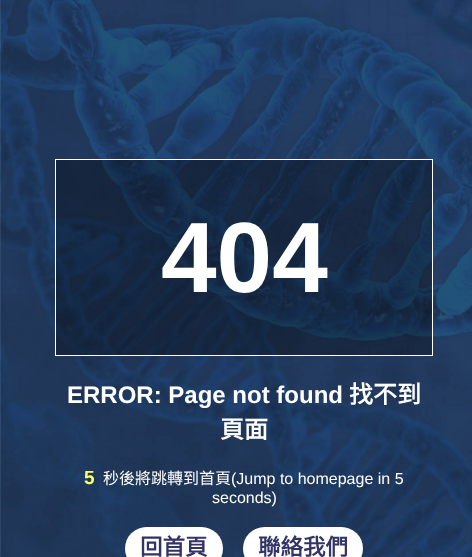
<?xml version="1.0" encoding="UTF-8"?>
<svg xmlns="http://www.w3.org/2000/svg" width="472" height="557">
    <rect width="100%" height="100%" fill="#FFFFFF"/>
    <image x="0" y="0" width="472" height="557" href="img_01.png"/>
    <rect x="55.5" y="159.5" width="377" height="196" fill="#000000" fill-opacity="0.3" stroke="#FFFFFF"/>
    <text x="161" y="292" font-family="Liberation Sans" font-size="100" font-weight="700" fill="#FFFFFF">404</text>
    <text x="67" y="403" font-family="Liberation Sans" font-size="24" font-weight="700" fill="#FFFFFF">ERROR: Page not found</text>
    <text x="349" y="403" font-family="Noto Sans CJK TC" font-size="24" font-weight="700" fill="#FFFFFF">找不到</text>
    <text x="220" y="438" font-family="Noto Sans CJK TC" font-size="24" font-weight="700" fill="#FFFFFF">頁面</text>
    <text x="84" y="484" font-family="Liberation Sans" font-size="19" font-weight="700" fill="#FFFF66">5</text>
    <text x="103" y="484" font-family="Noto Sans CJK TC" font-size="16" fill="#FFFFFF">秒後將跳轉到首頁</text>
    <text x="231" y="484" font-family="Liberation Sans" font-size="16" fill="#FFFFFF">(Jump to homepage in 5</text>
    <text x="212" y="503" font-family="Liberation Sans" font-size="16" fill="#FFFFFF">seconds)</text>
    <rect x="125" y="527" width="98" height="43" rx="21.5" fill="#FFFFFF"/>
    <text x="140" y="555" font-family="Noto Sans CJK TC" font-size="22.5" font-weight="700" fill="#333366">回首頁</text>
    <rect x="243" y="527" width="120" height="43" rx="21.5" fill="#FFFFFF"/>
    <text x="258" y="555" font-family="Noto Sans CJK TC" font-size="22.5" font-weight="700" fill="#333366">聯絡我們</text>
</svg>
